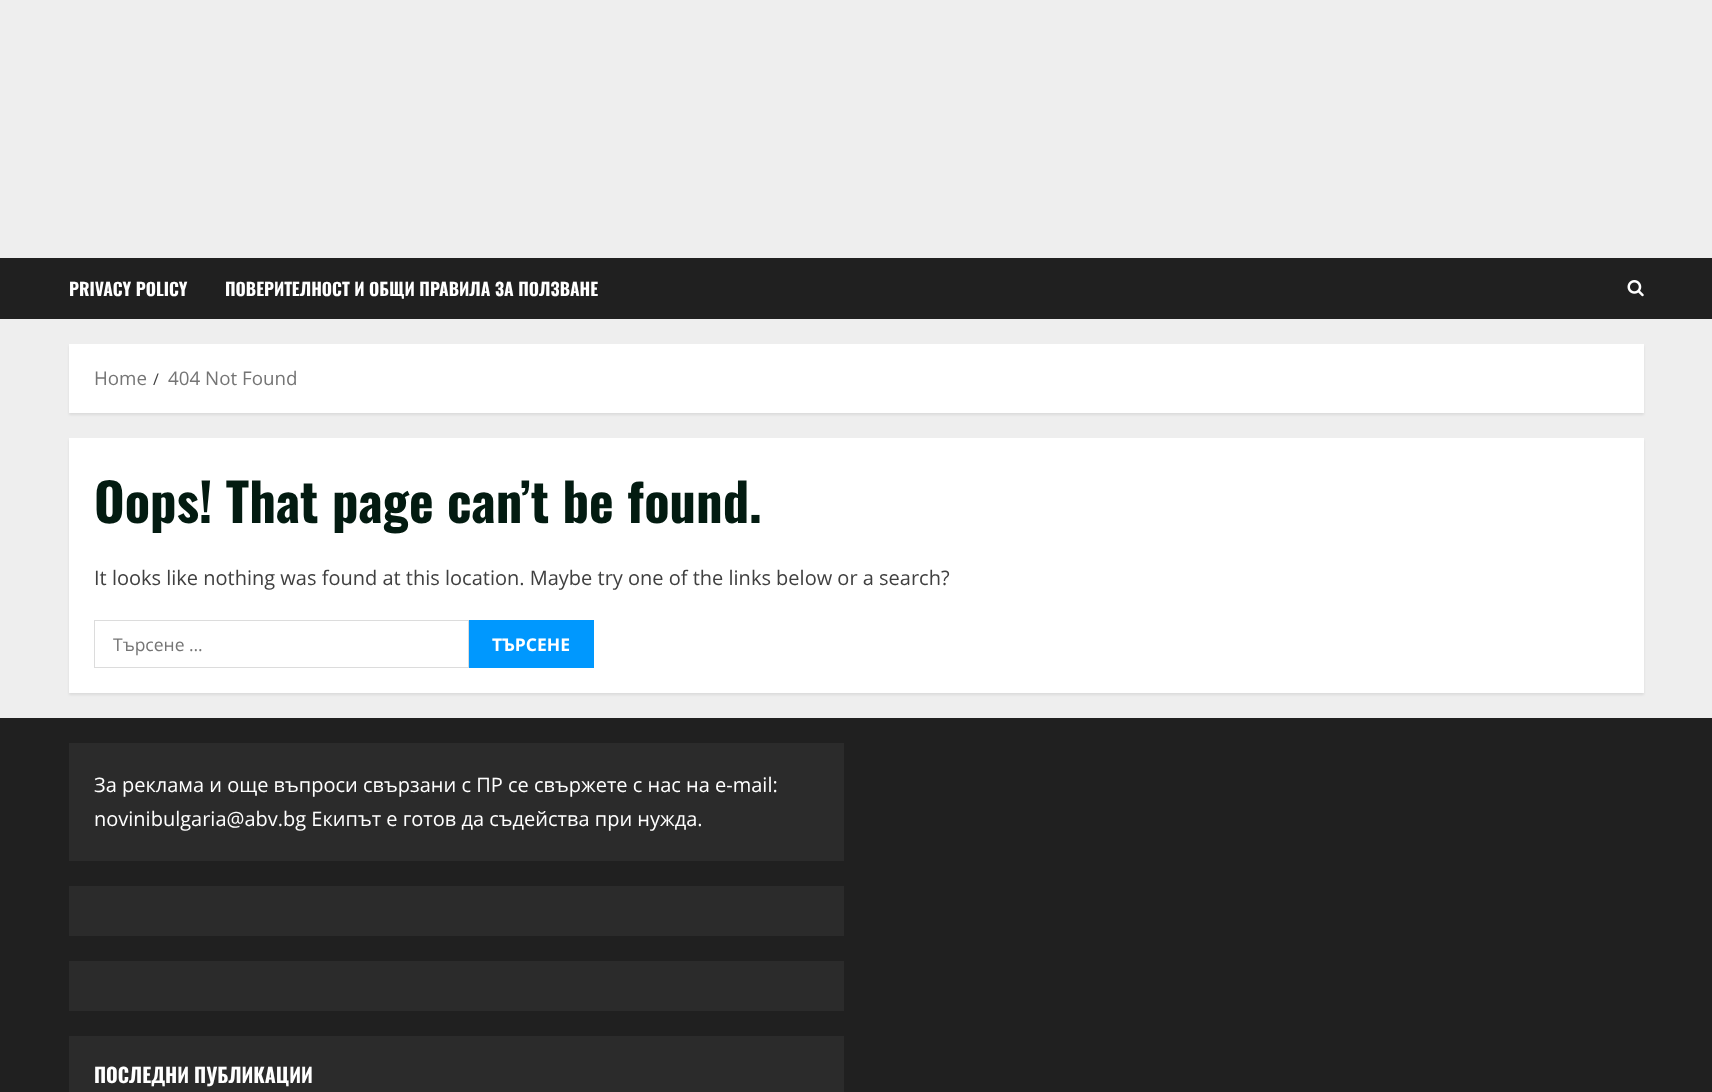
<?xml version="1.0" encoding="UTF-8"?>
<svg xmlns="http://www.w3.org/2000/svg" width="1712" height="1092">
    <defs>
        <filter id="blur1" x="-50%" y="-200%" width="200%" height="500%"><feGaussianBlur stdDeviation="1"/></filter>
    </defs>
    <rect width="100%" height="100%" fill="#EEEEEE"/>
    <rect x="0" y="258" width="1712" height="61" fill="#202020"/>
    <text x="69" y="296" font-family="Oswald" font-size="17.5" font-weight="700" fill="#FFFFFF">PRIVACY POLICY</text>
    <text x="225" y="296" font-family="Oswald" font-size="17.5" font-weight="700" fill="#FFFFFF">ПОВЕРИТЕЛНОСТ И ОБЩИ ПРАВИЛА ЗА ПОЛЗВАНЕ</text>
    <image x="1627" y="280" width="17" height="17" href="img_01.png"/>
    <rect x="69" y="346" width="1575" height="69" fill="#000000" fill-opacity="0.08" filter="url(#blur1)"/>
    <rect x="69" y="344" width="1575" height="69" fill="#FFFFFF"/>
    <text x="94" y="385" font-family="Open Sans" font-size="18.75" fill="#757575">Home</text>
    <text x="153" y="385" font-family="Open Sans" font-size="16" fill="#404040">/</text>
    <text x="168" y="385" font-family="Open Sans" font-size="18.75" fill="#757575">404 Not Found</text>
    <rect x="69" y="440" width="1575" height="255" fill="#000000" fill-opacity="0.08" filter="url(#blur1)"/>
    <rect x="69" y="438" width="1575" height="255" fill="#FFFFFF"/>
    <text x="94" y="523" font-family="Oswald" font-size="52.5" font-weight="700" fill="#031B11">Oops! That page can’t be found.</text>
    <text x="94" y="585" font-family="Open Sans" font-size="20" fill="#404040">It looks like nothing was found at this location. Maybe try one of the links below or a search?</text>
    <rect x="94.5" y="620.5" width="374" height="47" fill="none" stroke="#DCDCDC"/>
    <text x="113" y="651" font-family="Open Sans" font-size="17.5" fill="#757575">Търсене …</text>
    <rect x="469" y="620" width="125" height="48" fill="#0098FE"/>
    <text x="492" y="651" font-family="Open Sans" font-size="17.5" font-weight="700" fill="#FFFFFF">ТЪРСЕНЕ</text>
    <rect x="0" y="718" width="1712" height="374" fill="#202020"/>
    <rect x="69" y="743" width="775" height="118" fill="#2B2B2B"/>
    <text font-family="Open Sans" font-size="20" fill="#FFFFFF">
        <tspan x="94" y="792">За реклама и още въпроси свързани с ПР се свържете с нас на e-mail:</tspan>
        <tspan x="94" y="826">novinibulgaria@abv.bg Екипът е готов да съдейства при нужда.</tspan>
    </text>
    <rect x="69" y="886" width="775" height="50" fill="#2B2B2B"/>
    <rect x="69" y="961" width="775" height="50" fill="#2B2B2B"/>
    <rect x="69" y="1036" width="775" height="56" fill="#2B2B2B"/>
    <text x="94" y="1083" font-family="Oswald" font-size="20" font-weight="700" fill="#FFFFFF">ПОСЛЕДНИ ПУБЛИКАЦИИ</text>
</svg>
